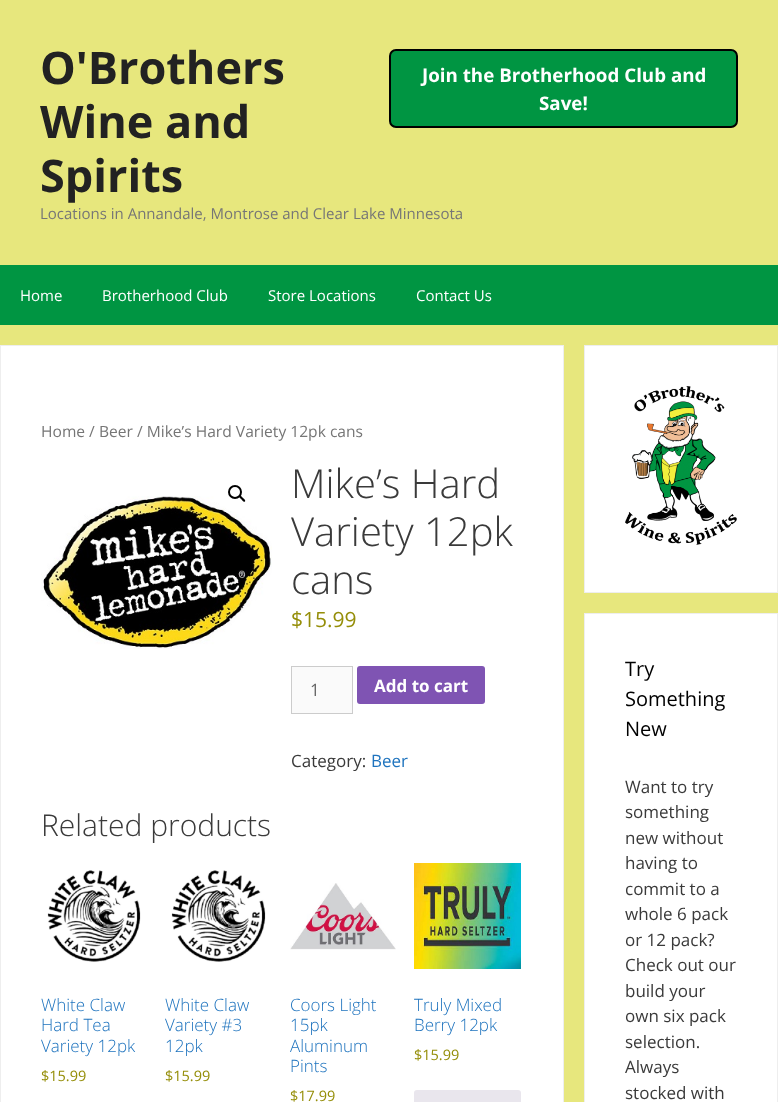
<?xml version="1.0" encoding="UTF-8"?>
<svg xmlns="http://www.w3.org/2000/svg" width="778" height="1102">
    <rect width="100%" height="100%" fill="#E7E77D"/>
    <text font-family="Open Sans" font-size="45" font-weight="700" fill="#222222">
        <tspan x="40" y="84">O'Brothers</tspan>
        <tspan x="40" y="138">Wine and</tspan>
        <tspan x="40" y="192">Spirits</tspan>
    </text>
    <text x="40" y="219" font-family="Open Sans" font-size="15" fill="#767676">Locations in Annandale, Montrose and Clear Lake Minnesota</text>
    <rect x="390" y="50" width="347" height="77" rx="6" fill="#009542" stroke="#000000" stroke-width="2"/>
    <text x="422" y="82" font-family="Open Sans" font-size="18.75" font-weight="700" fill="#FFFFFF">Join the Brotherhood Club and</text>
    <text x="539" y="110" font-family="Open Sans" font-size="18.75" font-weight="700" fill="#FFFFFF">Save!</text>
    <rect x="0" y="265" width="778" height="60" fill="#009542"/>
    <text x="20" y="301" font-family="Open Sans" font-size="15" fill="#FFFFFF">Home</text>
    <text x="102" y="301" font-family="Open Sans" font-size="15" fill="#FFFFFF">Brotherhood Club</text>
    <text x="268" y="301" font-family="Open Sans" font-size="15" fill="#FFFFFF">Store Locations</text>
    <text x="416" y="301" font-family="Open Sans" font-size="15" fill="#FFFFFF">Contact Us</text>
    <rect x="0.5" y="345.5" width="563" height="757" fill="none" stroke="#EEEEEE"/>
    <rect x="1" y="346" width="562" height="756" fill="#FFFFFF"/>
    <text x="41" y="437" font-family="Open Sans" font-size="15.6" fill="#767676">Home / Beer / Mike’s Hard Variety 12pk cans</text>
    <image x="41" y="496" width="231" height="153" href="img_01.png"/>
    <circle cx="237" cy="494" r="18" fill="#FFFFFF"/>
    <circle cx="235" cy="492" r="6" fill="none" stroke="#000000" stroke-width="2"/>
    <path d="M 239.5 495.5 C 240.5 494.5 242 497.5 243 498 C 243.5 498.5 246 500 245 501.5 C 243.5 502.5 242 500 241.5 499.5 C 241 498.5 238 497 239.5 495.5 Z" fill="#000000"/>
    <text font-family="Open Sans" font-size="40" font-weight="300" fill="#3A3A3A">
        <tspan x="291" y="498">Mike’s Hard</tspan>
        <tspan x="291" y="546">Variety 12pk</tspan>
        <tspan x="291" y="594">cans</tspan>
    </text>
    <text x="291" y="627" font-family="Open Sans" font-size="21" fill="#958E09">$15.99</text>
    <rect x="291.5" y="666.5" width="61" height="47" fill="#FAFAFA" stroke="#CCCCCC"/>
    <text x="310" y="696" font-family="Open Sans" font-size="17" fill="#666666">1</text>
    <rect x="357" y="666" width="128" height="38" rx="3" fill="#7F54B3"/>
    <text x="374" y="692" font-family="Open Sans" font-size="17" font-weight="700" fill="#FFFFFF">Add to cart</text>
    <text x="291" y="767" font-family="Open Sans" font-size="17" fill="#3A3A3A">Category:</text>
    <text x="371" y="767" font-family="Open Sans" font-size="17" fill="#1E73BE">Beer</text>
    <text x="41" y="836" font-family="Open Sans" font-size="30" font-weight="300" fill="#3A3A3A">Related products</text>
    <image x="47" y="870" width="94" height="92" href="img_02.png"/>
    <text font-family="Open Sans" font-size="17" font-weight="300" fill="#1E73BE">
        <tspan x="41" y="1011">White Claw</tspan>
        <tspan x="41" y="1031">Hard Tea</tspan>
        <tspan x="41" y="1052">Variety 12pk</tspan>
    </text>
    <text x="41" y="1081" font-family="Open Sans" font-size="14.5" fill="#958E09">$15.99</text>
    <image x="171" y="870" width="95" height="92" href="img_03.png"/>
    <text font-family="Open Sans" font-size="17" font-weight="300" fill="#1E73BE">
        <tspan x="165" y="1011">White Claw</tspan>
        <tspan x="165" y="1031">Variety #3</tspan>
        <tspan x="165" y="1052">12pk</tspan>
    </text>
    <text x="165" y="1081" font-family="Open Sans" font-size="14.5" fill="#958E09">$15.99</text>
    <image x="290" y="883" width="106" height="67" href="img_04.png"/>
    <text font-family="Open Sans" font-size="17" font-weight="300" fill="#1E73BE">
        <tspan x="290" y="1011">Coors Light</tspan>
        <tspan x="290" y="1031">15pk</tspan>
        <tspan x="290" y="1052">Aluminum</tspan>
        <tspan x="290" y="1072">Pints</tspan>
    </text>
    <text x="290" y="1101" font-family="Open Sans" font-size="14.5" fill="#958E09">$17.99</text>
    <image x="414" y="863" width="107" height="106" href="img_05.png"/>
    <text font-family="Open Sans" font-size="17" font-weight="300" fill="#1E73BE">
        <tspan x="414" y="1011">Truly Mixed</tspan>
        <tspan x="414" y="1031">Berry 12pk</tspan>
    </text>
    <text x="414" y="1060" font-family="Open Sans" font-size="14.5" fill="#958E09">$15.99</text>
    <rect x="414" y="1090" width="107" height="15" rx="3" fill="#E9E6ED"/>
    <rect x="584.5" y="345.5" width="193" height="247" fill="#FFFFFF" stroke="#EEEEEE"/>
    <image x="625" y="386" width="112" height="159" href="img_06.png"/>
    <rect x="584.5" y="613.5" width="193" height="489" fill="#FFFFFF" stroke="#EEEEEE"/>
    <text font-family="Open Sans" font-size="20" fill="#000000">
        <tspan x="625" y="676">Try</tspan>
        <tspan x="625" y="706">Something</tspan>
        <tspan x="625" y="736">New</tspan>
    </text>
    <text font-family="Open Sans" font-size="17" fill="#3A3A3A">
        <tspan x="625" y="793">Want to try</tspan>
        <tspan x="625" y="818">something</tspan>
        <tspan x="625" y="844">new without</tspan>
        <tspan x="625" y="869">having to</tspan>
        <tspan x="625" y="895">commit to a</tspan>
        <tspan x="625" y="920">whole 6 pack</tspan>
        <tspan x="625" y="946">or 12 pack?</tspan>
        <tspan x="625" y="971">Check out our</tspan>
        <tspan x="625" y="997">build your</tspan>
        <tspan x="625" y="1022">own six pack</tspan>
        <tspan x="625" y="1048">selection.</tspan>
        <tspan x="625" y="1073">Always</tspan>
        <tspan x="625" y="1099">stocked with</tspan>
    </text>
</svg>
